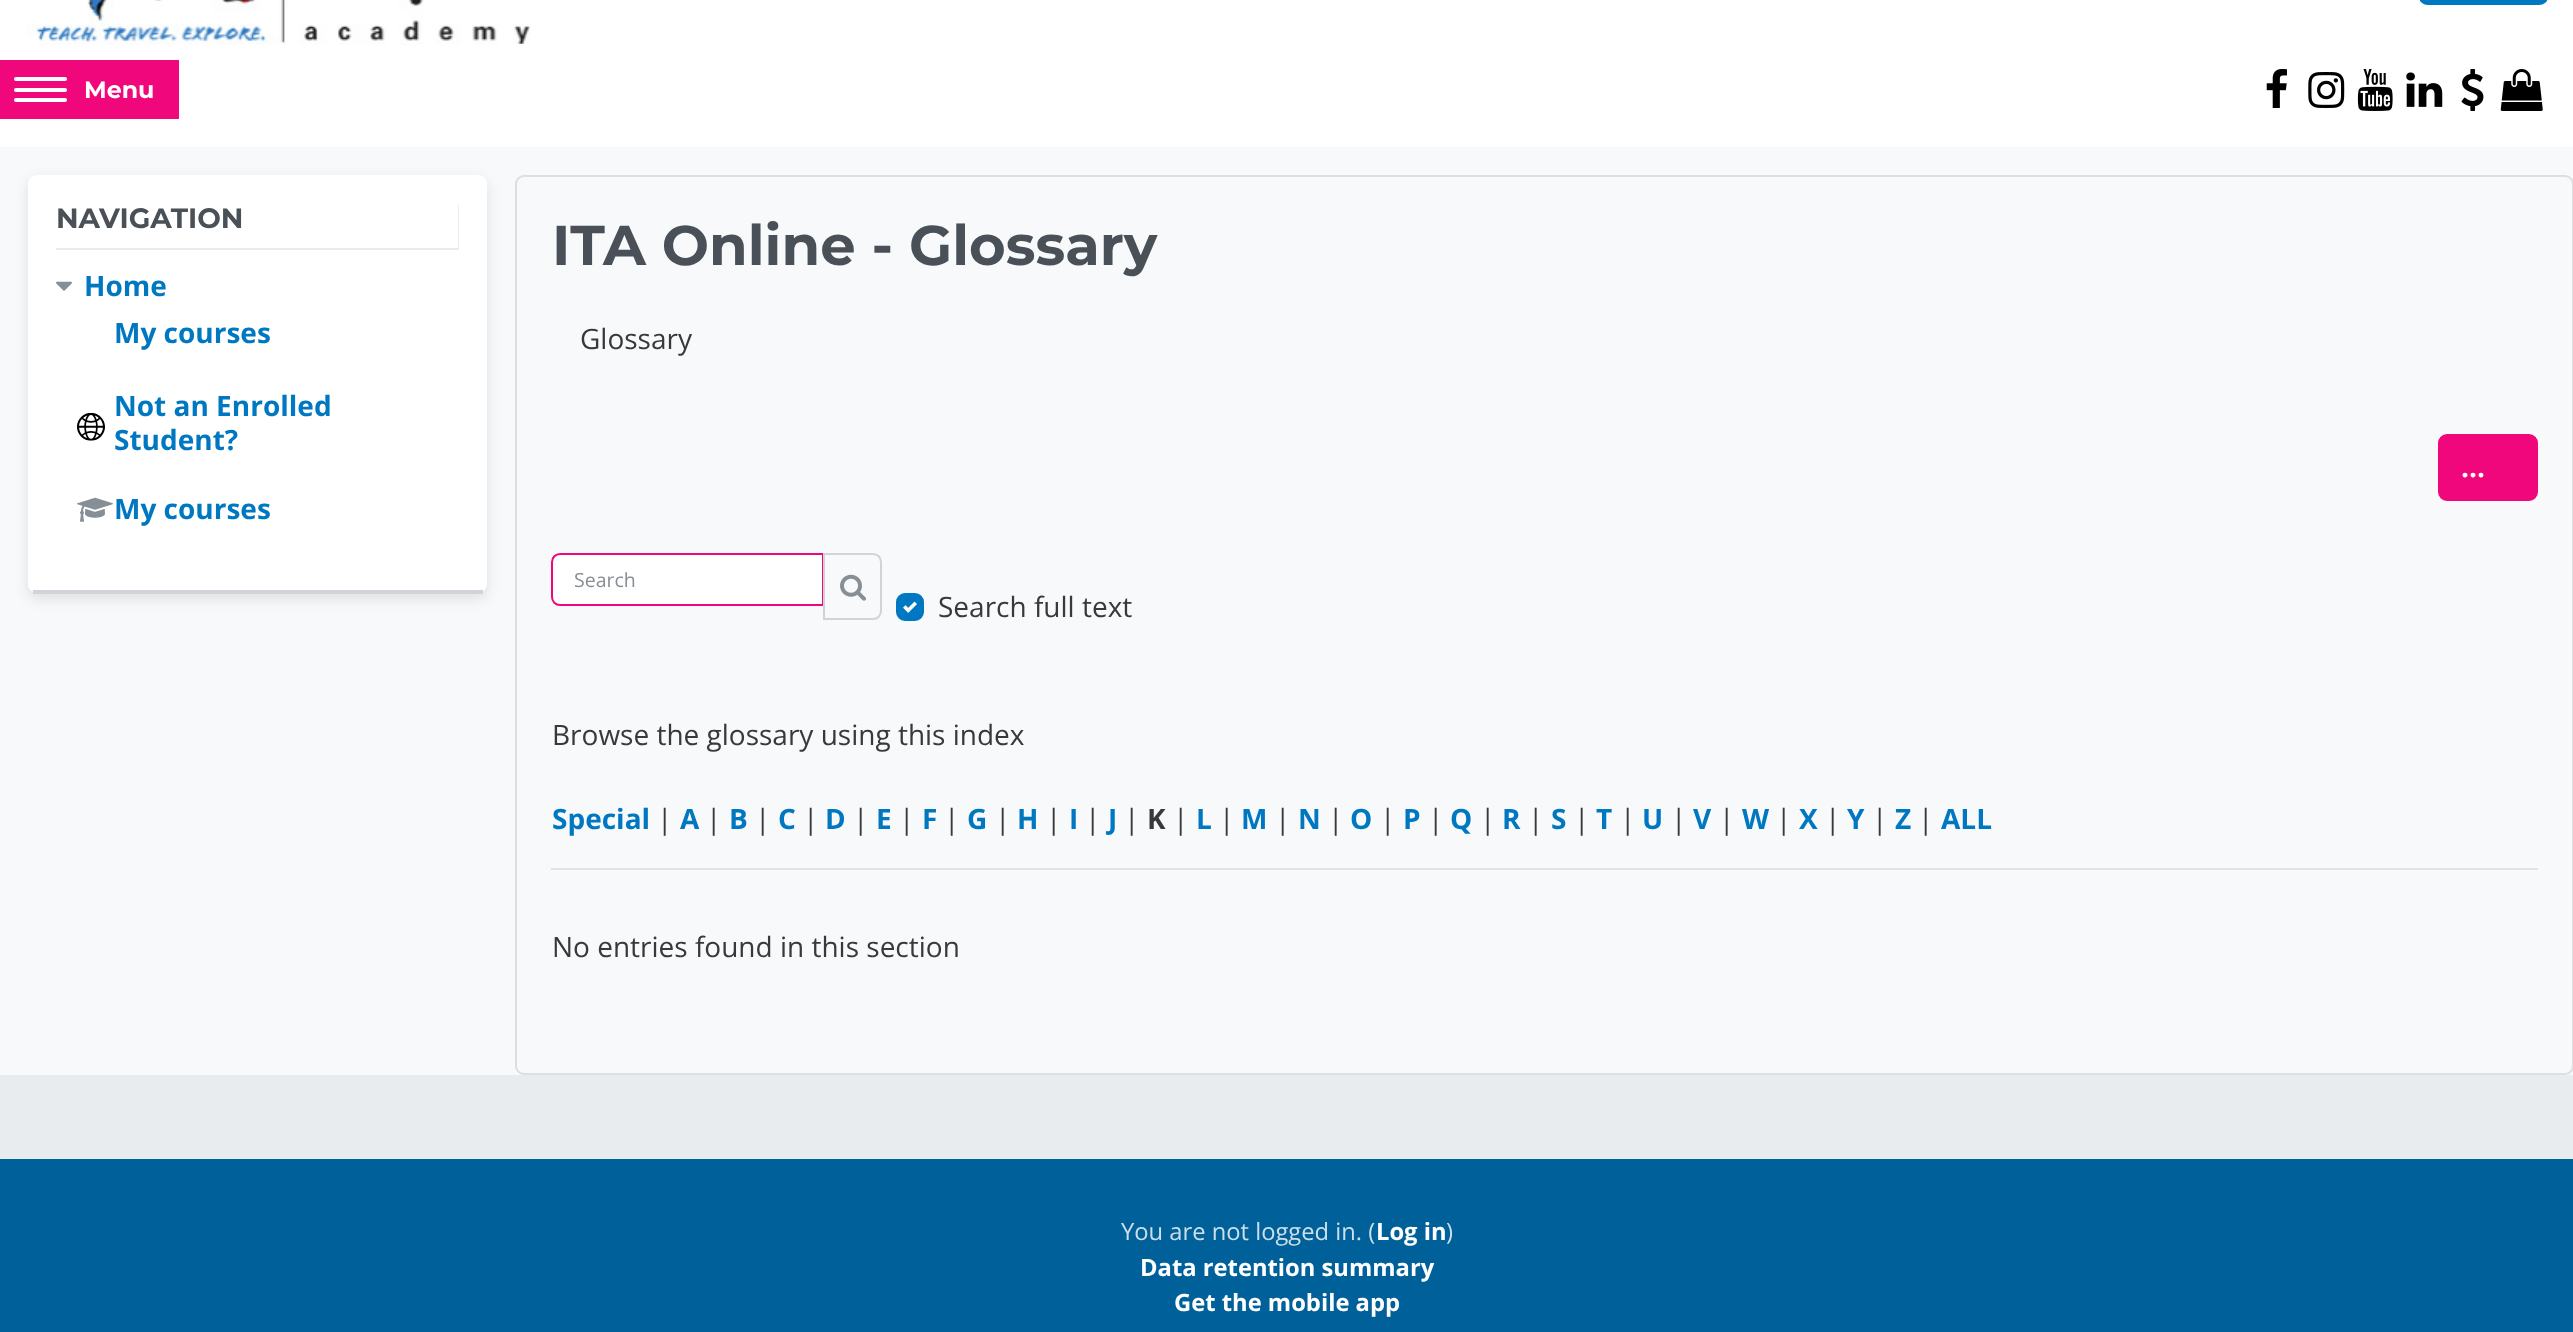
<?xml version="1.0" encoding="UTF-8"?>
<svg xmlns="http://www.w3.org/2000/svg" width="2573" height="1332">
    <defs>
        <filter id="blur1" x="-50%" y="-200%" width="200%" height="500%"><feGaussianBlur stdDeviation="7"/></filter>
    </defs>
    <rect width="100%" height="100%" fill="#F8F9FA"/>
    <rect x="0" y="0" width="2573" height="60" fill="#FFFFFF"/>
    <rect x="2420" y="-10" width="127" height="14" rx="8" fill="#0078C1" stroke="#0078C1" stroke-width="2"/>
    <image x="26" y="0" width="505" height="45" href="img_01.png"/>
    <rect x="179" y="60" width="2394" height="59" fill="#FFFFFF"/>
    <rect x="0" y="60" width="179" height="59" fill="#F0077B"/>
    <rect x="14" y="77" width="53" height="4" rx="2" fill="#FFFFFF"/>
    <rect x="14" y="88" width="53" height="4" rx="2" fill="#FFFFFF"/>
    <rect x="14" y="98" width="53" height="4" rx="2" fill="#FFFFFF"/>
    <text x="84" y="98" font-family="Montserrat" font-size="23.75" font-weight="700" fill="#FFFFFF">Menu</text>
    <image x="2266" y="69" width="21" height="39" href="img_02.png"/>
    <image x="2308" y="72" width="37" height="36" href="img_03.png"/>
    <image x="2357" y="69" width="36" height="42" href="img_04.png"/>
    <image x="2406" y="72" width="37" height="35" href="img_05.png"/>
    <image x="2461" y="69" width="23" height="42" href="img_06.png"/>
    <image x="2500" y="69" width="43" height="42" href="img_07.png"/>
    <rect x="0" y="119" width="2573" height="28" fill="#FFFFFF"/>
    <rect x="28" y="180" width="459" height="419" rx="9" fill="#000000" fill-opacity="0.1" filter="url(#blur1)"/>
    <rect x="28" y="175" width="459" height="418" rx="9" fill="#FFFFFF"/>
    <rect x="33" y="590" width="450" height="4" fill="#CED4DA"/>
    <path d="M 56 248 V 250 H 459 V 205 H 458 V 248 Z" fill="#E9ECEF"/>
    <text x="56" y="228" font-family="Montserrat" font-size="28" font-weight="700" fill="#495057">NAVIGATION</text>
    <image x="56" y="281" width="16" height="10" href="img_08.png"/>
    <text x="84" y="296" font-family="Open Sans" font-size="28" font-weight="700" fill="#0078C1">Home</text>
    <text x="114" y="343" font-family="Open Sans" font-size="28" font-weight="700" fill="#0078C1">My courses</text>
    <image x="77" y="413" width="28" height="28" href="img_09.png"/>
    <text font-family="Open Sans" font-size="28" font-weight="700" fill="#0078C1">
        <tspan x="114" y="416">Not an Enrolled</tspan>
        <tspan x="114" y="450">Student?</tspan>
    </text>
    <image x="77" y="497" width="36" height="25" href="img_10.png"/>
    <text x="114" y="519" font-family="Open Sans" font-size="28" font-weight="700" fill="#0078C1">My courses</text>
    <rect x="516" y="176" width="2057" height="898" rx="8" fill="none" stroke="#DDDEDF" stroke-width="2"/>
    <text x="552" y="265" font-family="Montserrat" font-size="56" font-weight="700" fill="#495057">ITA Online - Glossary</text>
    <text x="580" y="349" font-family="Open Sans" font-size="28" fill="#373A3C">Glossary</text>
    <rect x="2439" y="435" width="98" height="65" rx="8" fill="#F0077B" stroke="#F0077B" stroke-width="2"/>
    <text x="2461" y="477" font-family="Open Sans" font-size="28" font-weight="700" fill="#FFFFFF">...</text>
    <path d="M 560 554 H 823 V 605 H 560 C 555.5 605 552 601.5 552 597 V 562 C 552 557.5 555.5 554 560 554 Z" fill="#FFFFFF" stroke="#F0077B" stroke-width="2"/>
    <text x="574" y="587" font-family="Open Sans" font-size="19.5" fill="#868E96">Search</text>
    <path d="M 824 554 H 873 C 877.5 554 881 557.5 881 562 V 611 C 881 615.5 877.5 619 873 619 H 824 Z" fill="#F8F9FA" stroke="#CED4DA" stroke-width="2"/>
    <image x="840" y="574" width="26" height="27" href="img_11.png"/>
    <rect x="897" y="594" width="26" height="26" rx="8" fill="#0078C1" stroke="#0078C1" stroke-width="2"/>
    <text x="938" y="617" font-family="Open Sans" font-size="28" fill="#373A3C">Search full text</text>
    <image x="903" y="601" width="14" height="12" href="img_12.png"/>
    <text x="552" y="745" font-family="Open Sans" font-size="28" fill="#373A3C">Browse the glossary using this index</text>
    <text x="552" y="829" font-family="Open Sans" font-size="28" font-weight="700" fill="#0078C1">Special</text>
    <text x="657" y="829" font-family="Open Sans" font-size="28" fill="#373A3C">|</text>
    <text x="680" y="829" font-family="Open Sans" font-size="28" font-weight="700" fill="#0078C1">A</text>
    <text x="706" y="829" font-family="Open Sans" font-size="28" fill="#373A3C">|</text>
    <text x="729" y="829" font-family="Open Sans" font-size="28" font-weight="700" fill="#0078C1">B</text>
    <text x="755" y="829" font-family="Open Sans" font-size="28" fill="#373A3C">|</text>
    <text x="778" y="829" font-family="Open Sans" font-size="28" font-weight="700" fill="#0078C1">C</text>
    <text x="803" y="829" font-family="Open Sans" font-size="28" fill="#373A3C">|</text>
    <text x="825" y="829" font-family="Open Sans" font-size="28" font-weight="700" fill="#0078C1">D</text>
    <text x="853" y="829" font-family="Open Sans" font-size="28" fill="#373A3C">|</text>
    <text x="876" y="829" font-family="Open Sans" font-size="28" font-weight="700" fill="#0078C1">E</text>
    <text x="899" y="829" font-family="Open Sans" font-size="28" fill="#373A3C">|</text>
    <text x="922" y="829" font-family="Open Sans" font-size="28" font-weight="700" fill="#0078C1">F</text>
    <text x="944" y="829" font-family="Open Sans" font-size="28" fill="#373A3C">|</text>
    <text x="967" y="829" font-family="Open Sans" font-size="28" font-weight="700" fill="#0078C1">G</text>
    <text x="995" y="829" font-family="Open Sans" font-size="28" fill="#373A3C">|</text>
    <text x="1017" y="829" font-family="Open Sans" font-size="28" font-weight="700" fill="#0078C1">H</text>
    <text x="1046" y="829" font-family="Open Sans" font-size="28" fill="#373A3C">|</text>
    <text x="1069" y="829" font-family="Open Sans" font-size="28" font-weight="700" fill="#0078C1">I</text>
    <text x="1085" y="829" font-family="Open Sans" font-size="28" fill="#373A3C">|</text>
    <text x="1108" y="829" font-family="Open Sans" font-size="28" font-weight="700" fill="#0078C1">J</text>
    <text x="1124" y="829" font-family="Open Sans" font-size="28" fill="#373A3C">|</text>
    <text x="1147" y="829" font-family="Open Sans" font-size="28" font-weight="700" fill="#373A3C">K</text>
    <text x="1173" y="829" font-family="Open Sans" font-size="28" fill="#373A3C">|</text>
    <text x="1196" y="829" font-family="Open Sans" font-size="28" font-weight="700" fill="#0078C1">L</text>
    <text x="1219" y="829" font-family="Open Sans" font-size="28" fill="#373A3C">|</text>
    <text x="1241" y="829" font-family="Open Sans" font-size="28" font-weight="700" fill="#0078C1">M</text>
    <text x="1275" y="829" font-family="Open Sans" font-size="28" fill="#373A3C">|</text>
    <text x="1298" y="829" font-family="Open Sans" font-size="28" font-weight="700" fill="#0078C1">N</text>
    <text x="1328" y="829" font-family="Open Sans" font-size="28" fill="#373A3C">|</text>
    <text x="1350" y="829" font-family="Open Sans" font-size="28" font-weight="700" fill="#0078C1">O</text>
    <text x="1380" y="829" font-family="Open Sans" font-size="28" fill="#373A3C">|</text>
    <text x="1403" y="829" font-family="Open Sans" font-size="28" font-weight="700" fill="#0078C1">P</text>
    <text x="1428" y="829" font-family="Open Sans" font-size="28" fill="#373A3C">|</text>
    <text x="1450" y="829" font-family="Open Sans" font-size="28" font-weight="700" fill="#0078C1">Q</text>
    <text x="1480" y="829" font-family="Open Sans" font-size="28" fill="#373A3C">|</text>
    <text x="1502" y="829" font-family="Open Sans" font-size="28" font-weight="700" fill="#0078C1">R</text>
    <text x="1528" y="829" font-family="Open Sans" font-size="28" fill="#373A3C">|</text>
    <text x="1551" y="829" font-family="Open Sans" font-size="28" font-weight="700" fill="#0078C1">S</text>
    <text x="1574" y="829" font-family="Open Sans" font-size="28" fill="#373A3C">|</text>
    <text x="1596" y="829" font-family="Open Sans" font-size="28" font-weight="700" fill="#0078C1">T</text>
    <text x="1620" y="829" font-family="Open Sans" font-size="28" fill="#373A3C">|</text>
    <text x="1642" y="829" font-family="Open Sans" font-size="28" font-weight="700" fill="#0078C1">U</text>
    <text x="1671" y="829" font-family="Open Sans" font-size="28" fill="#373A3C">|</text>
    <text x="1693" y="829" font-family="Open Sans" font-size="28" font-weight="700" fill="#0078C1">V</text>
    <text x="1719" y="829" font-family="Open Sans" font-size="28" fill="#373A3C">|</text>
    <text x="1742" y="829" font-family="Open Sans" font-size="28" font-weight="700" fill="#0078C1">W</text>
    <text x="1776" y="829" font-family="Open Sans" font-size="28" fill="#373A3C">|</text>
    <text x="1799" y="829" font-family="Open Sans" font-size="28" font-weight="700" fill="#0078C1">X</text>
    <text x="1825" y="829" font-family="Open Sans" font-size="28" fill="#373A3C">|</text>
    <text x="1847" y="829" font-family="Open Sans" font-size="28" font-weight="700" fill="#0078C1">Y</text>
    <text x="1872" y="829" font-family="Open Sans" font-size="28" fill="#373A3C">|</text>
    <text x="1895" y="829" font-family="Open Sans" font-size="28" font-weight="700" fill="#0078C1">Z</text>
    <text x="1918" y="829" font-family="Open Sans" font-size="28" fill="#373A3C">|</text>
    <text x="1941" y="829" font-family="Open Sans" font-size="28" font-weight="700" fill="#0078C1">ALL</text>
    <rect x="551" y="868" width="1987" height="2" fill="#E2E3E5"/>
    <text x="552" y="957" font-family="Open Sans" font-size="28" fill="#373A3C">No entries found in this section</text>
    <rect x="0" y="1075" width="2573" height="84" fill="#E9ECEF"/>
    <rect x="0" y="1159" width="2573" height="173" fill="#00609A"/>
    <text x="1121" y="1240" font-family="Open Sans" font-size="23.75" fill="#CCDFEB">You are not logged in. (</text>
    <text x="1376" y="1240" font-family="Open Sans" font-size="23.75" font-weight="700" fill="#FFFFFF">Log in</text>
    <text x="1446" y="1240" font-family="Open Sans" font-size="23.75" fill="#CCDFEB">)</text>
    <text x="1140" y="1276" font-family="Open Sans" font-size="23.75" font-weight="700" fill="#FFFFFF">Data retention summary</text>
    <text x="1174" y="1311" font-family="Open Sans" font-size="23.75" font-weight="700" fill="#FFFFFF">Get the mobile app</text>
</svg>
